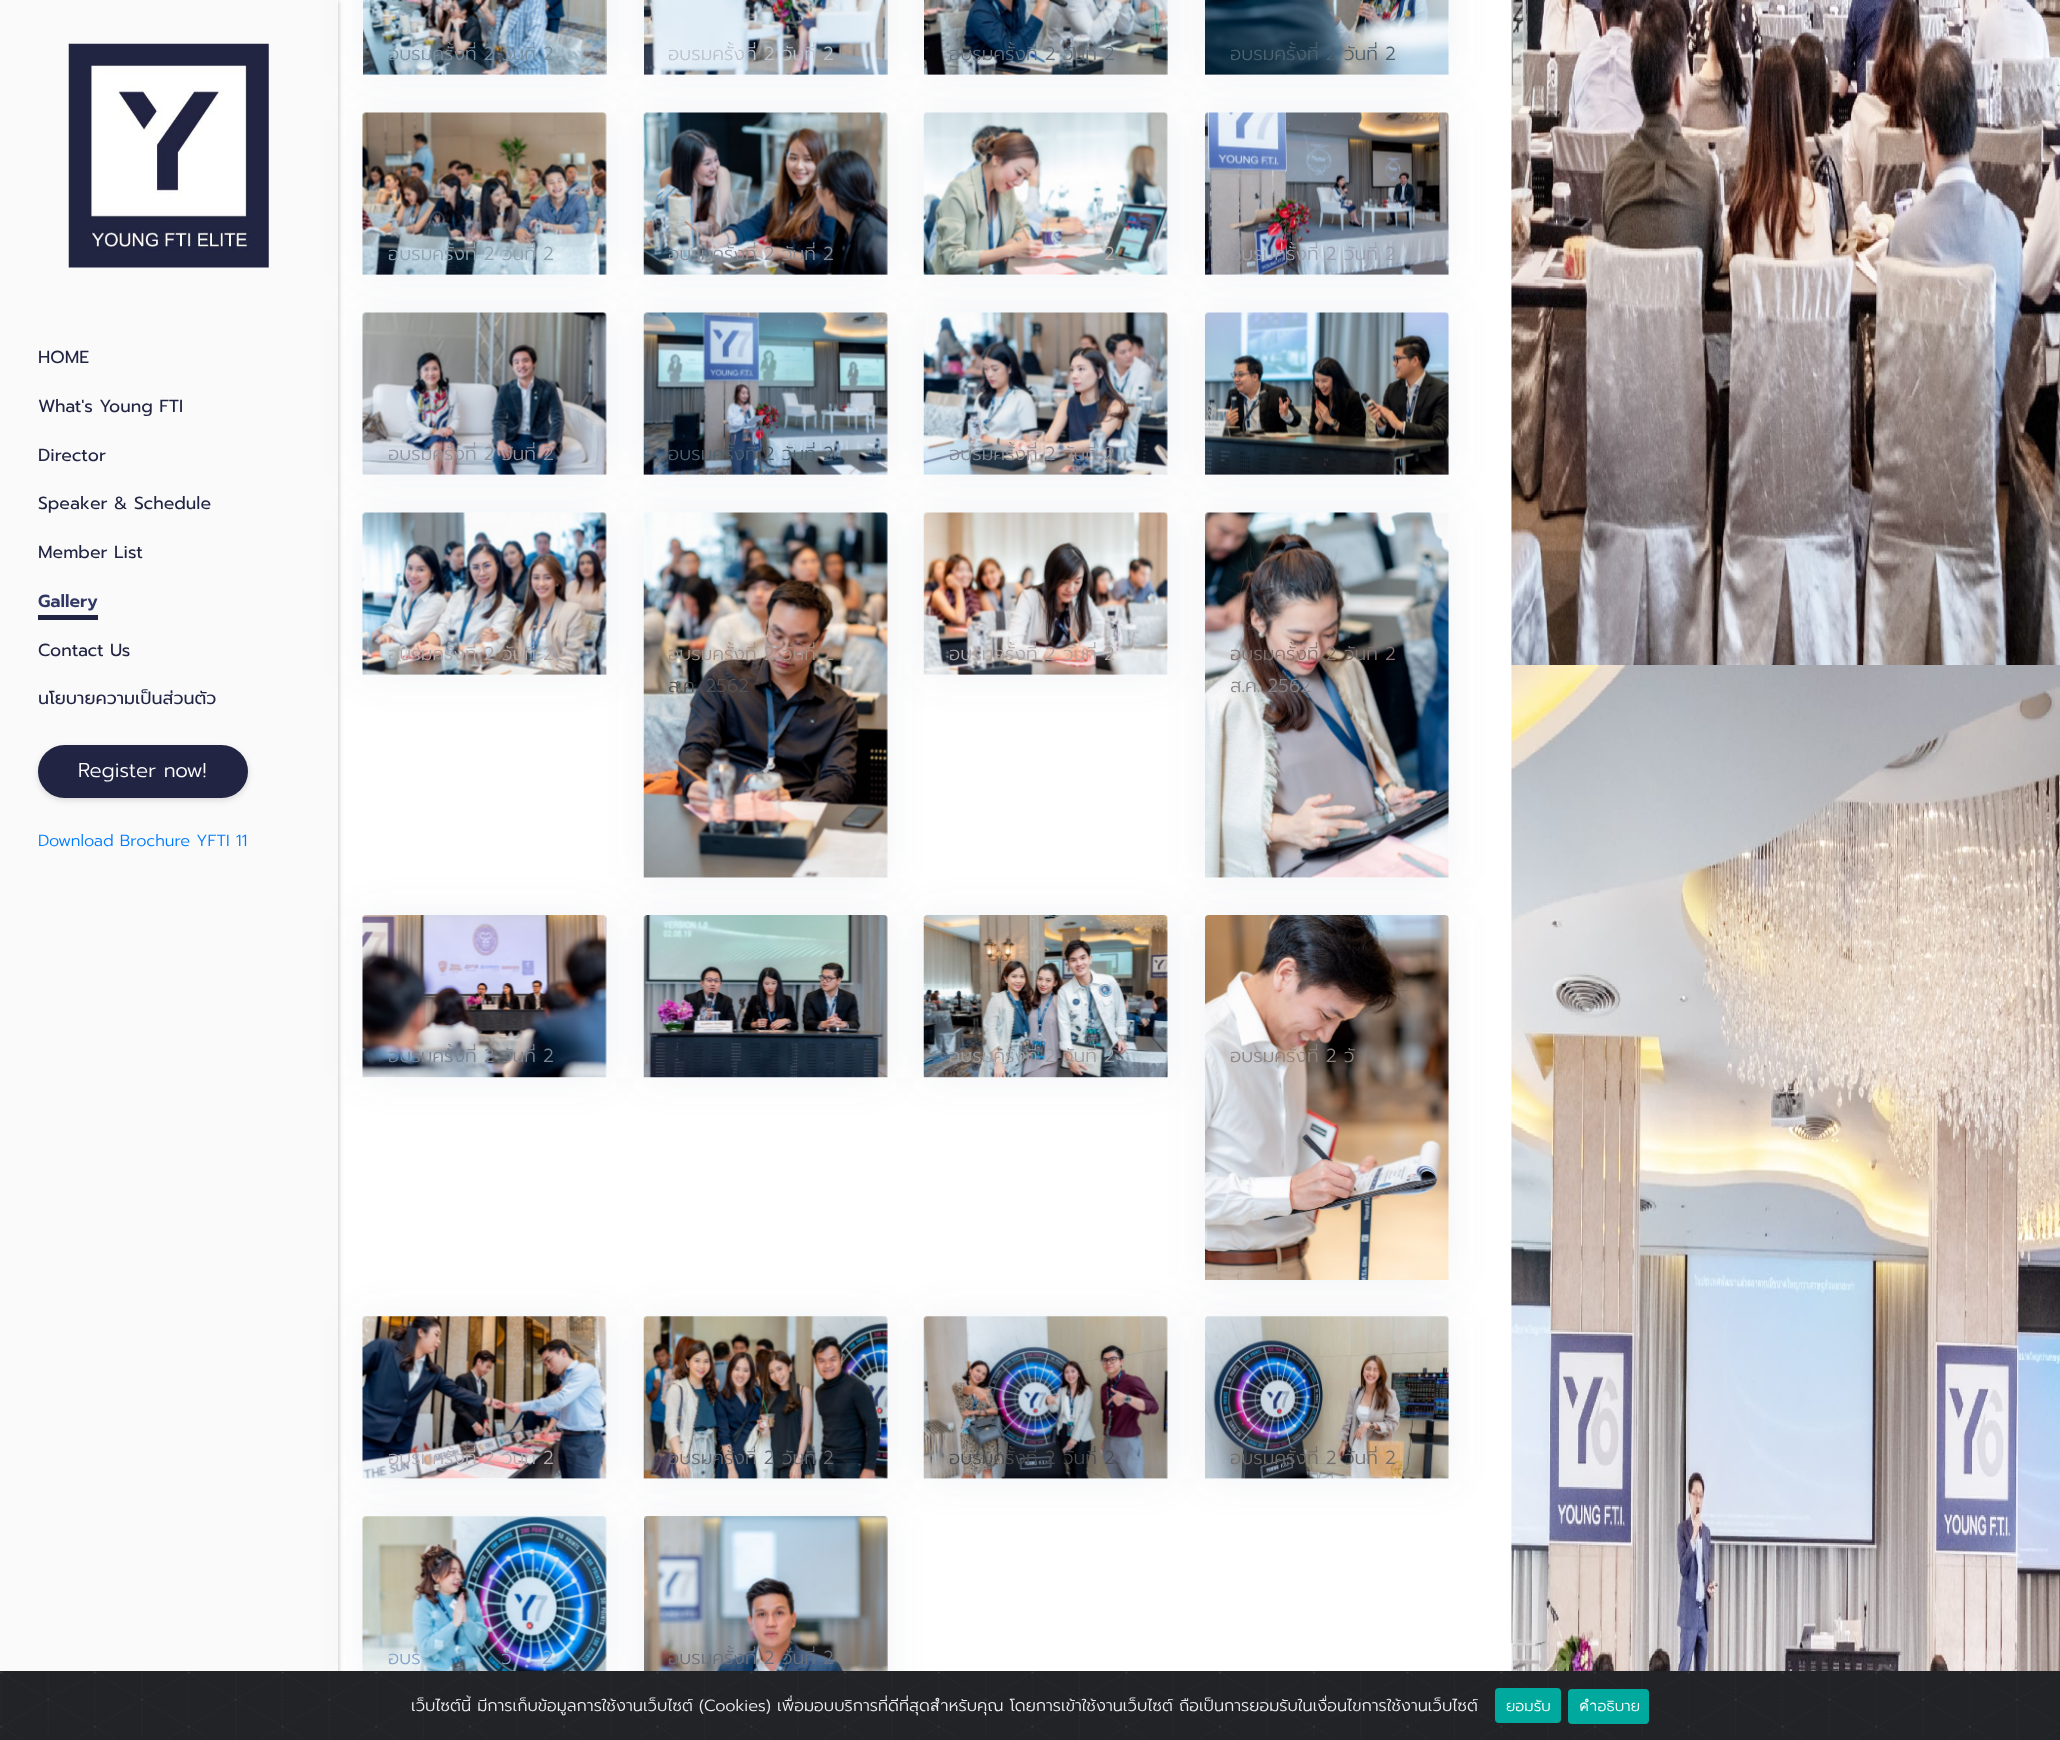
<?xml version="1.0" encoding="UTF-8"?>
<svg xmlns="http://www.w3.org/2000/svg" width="2060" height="1740">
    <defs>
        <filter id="blur1" x="-50%" y="-200%" width="200%" height="500%"><feGaussianBlur stdDeviation="2"/></filter>
        <filter id="blur2" x="-50%" y="-200%" width="200%" height="500%"><feGaussianBlur stdDeviation="3"/></filter>
        <filter id="blur3" x="-50%" y="-200%" width="200%" height="500%"><feGaussianBlur stdDeviation="19"/></filter>
    </defs>
    <rect width="100%" height="100%" fill="#FFFFFF"/>
    <rect x="1" y="1" width="338" height="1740" fill="#000000" fill-opacity="0.2" filter="url(#blur1)"/>
    <rect x="0" y="0" width="338" height="1671" fill="#FAFAFA"/>
    <image x="68" y="43" width="201" height="225" href="img_01.png"/>
    <text x="38" y="363" font-family="Prompt" font-size="17.5" fill="#212543">HOME</text>
    <text x="38" y="412" font-family="Prompt" font-size="17.5" fill="#212543">What's Young FTI</text>
    <text x="38" y="461" font-family="Prompt" font-size="17.5" fill="#212543">Director</text>
    <text x="38" y="509" font-family="Prompt" font-size="17.5" fill="#212543">Speaker &amp; Schedule</text>
    <text x="38" y="558" font-family="Prompt" font-size="17.5" fill="#212543">Member List</text>
    <text x="38" y="607" font-family="Prompt" font-size="17.5" font-weight="600" fill="#323865">Gallery</text>
    <rect x="38" y="615" width="60" height="5" fill="#212543"/>
    <text x="38" y="656" font-family="Prompt" font-size="17.5" fill="#212543">Contact Us</text>
    <text x="38" y="704" font-family="Prompt" font-size="17.5" fill="#212543">นโยบายความเป็นส่วนตัว</text>
    <rect x="38" y="748" width="210" height="52" rx="26" fill="#000000" fill-opacity="0.14" filter="url(#blur2)"/>
    <rect x="38" y="745" width="210" height="53" rx="26.5" fill="#212543"/>
    <text x="78" y="777" font-family="Prompt" font-size="20" font-weight="300" fill="#FFFFFF">Register now!</text>
    <text x="38" y="846" font-family="Prompt" font-size="16.25" font-weight="300" fill="#007BFF">Download Brochure YFTI 11</text>
    <rect x="363" y="-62" width="243" height="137" rx="5" fill="#73809D" fill-opacity="0.1" filter="url(#blur3)"/>
    <image x="363" y="0" width="244" height="75" href="img_02.png"/>
    <text x="388" y="60" font-family="Prompt" font-size="18.75" font-weight="300" fill="#7B8F9E">อบรมครั้งที่ 2 วันที่ 2</text>
    <rect x="644" y="-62" width="242" height="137" rx="5" fill="#73809D" fill-opacity="0.1" filter="url(#blur3)"/>
    <image x="644" y="0" width="244" height="75" href="img_03.png"/>
    <text x="668" y="60" font-family="Prompt" font-size="18.75" font-weight="300" fill="#BBC2CB">อบรมครั้งที่ 2 วันที่ 2</text>
    <rect x="924" y="-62" width="244" height="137" rx="5" fill="#73809D" fill-opacity="0.1" filter="url(#blur3)"/>
    <rect x="924" y="-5" width="244" height="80" rx="5" fill="#FFFFFF"/>
    <image x="924" y="0" width="244" height="75" href="img_04.png"/>
    <text x="949" y="60" font-family="Prompt" font-size="18.75" font-weight="300" fill="#647280">อบรมครั้งที่ 2 วันที่ 2</text>
    <rect x="1205" y="-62" width="244" height="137" rx="5" fill="#73809D" fill-opacity="0.1" filter="url(#blur3)"/>
    <rect x="1205" y="-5" width="244" height="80" rx="5" fill="#FFFFFF"/>
    <image x="1205" y="0" width="244" height="75" href="img_05.png"/>
    <text x="1230" y="60" font-family="Prompt" font-size="18.75" font-weight="300" fill="#4C6270">อบรมครั้งที่ 2 วันที่ 2</text>
    <rect x="363" y="113" width="243" height="162" rx="5" fill="#73809D" fill-opacity="0.1" filter="url(#blur3)"/>
    <image x="362" y="112" width="245" height="163" href="img_06.png"/>
    <text x="388" y="260" font-family="Prompt" font-size="18.75" font-weight="300" fill="#8FA3AF">อบรมครั้งที่ 2 วันที่ 2</text>
    <rect x="644" y="113" width="242" height="162" rx="5" fill="#73809D" fill-opacity="0.1" filter="url(#blur3)"/>
    <image x="643" y="112" width="245" height="163" href="img_07.png"/>
    <text x="668" y="260" font-family="Prompt" font-size="18.75" font-weight="300" fill="#8A8B92">อบรมครั้งที่ 2 วันที่ 2</text>
    <rect x="924" y="113" width="244" height="162" rx="5" fill="#73809D" fill-opacity="0.1" filter="url(#blur3)"/>
    <rect x="924" y="113" width="244" height="162" rx="5" fill="#FFFFFF"/>
    <image x="923" y="112" width="245" height="163" href="img_08.png"/>
    <text x="1068" y="260" font-family="Prompt" font-size="18.75" font-weight="300" fill="#BFB0A9">ั</text>
    <text x="1104" y="260" font-family="Prompt" font-size="18.75" font-weight="300" fill="#BFB0A9">2</text>
    <rect x="1205" y="113" width="244" height="162" rx="5" fill="#73809D" fill-opacity="0.1" filter="url(#blur3)"/>
    <rect x="1205" y="113" width="244" height="162" rx="5" fill="#FFFFFF"/>
    <image x="1205" y="112" width="244" height="163" href="img_09.png"/>
    <text x="1230" y="260" font-family="Prompt" font-size="18.75" font-weight="300" fill="#9A9EAE">อบรมครั้งที่ 2 วันที่ 2</text>
    <rect x="363" y="313" width="243" height="162" rx="5" fill="#73809D" fill-opacity="0.1" filter="url(#blur3)"/>
    <image x="362" y="312" width="245" height="163" href="img_10.png"/>
    <text x="388" y="460" font-family="Prompt" font-size="18.75" font-weight="300" fill="#9293A0">อบรมครั้งที่ 2 วันที่ 2</text>
    <rect x="644" y="313" width="242" height="162" rx="5" fill="#73809D" fill-opacity="0.1" filter="url(#blur3)"/>
    <image x="643" y="312" width="245" height="163" href="img_11.png"/>
    <text x="668" y="460" font-family="Prompt" font-size="18.75" font-weight="300" fill="#4C6270">อบรมครั้งที่ 2 วันที่ 2</text>
    <rect x="924" y="313" width="244" height="162" rx="5" fill="#73809D" fill-opacity="0.1" filter="url(#blur3)"/>
    <rect x="924" y="313" width="244" height="162" rx="5" fill="#FFFFFF"/>
    <image x="923" y="312" width="245" height="163" href="img_12.png"/>
    <text x="949" y="460" font-family="Prompt" font-size="18.75" font-weight="300" fill="#8A8B92">อบรมครั้งที่ 2 วันที่ 2</text>
    <rect x="1205" y="313" width="244" height="162" rx="5" fill="#73809D" fill-opacity="0.1" filter="url(#blur3)"/>
    <rect x="1205" y="313" width="244" height="162" rx="5" fill="#FFFFFF"/>
    <image x="1205" y="312" width="244" height="163" href="img_13.png"/>
    <rect x="363" y="513" width="243" height="162" rx="5" fill="#73809D" fill-opacity="0.1" filter="url(#blur3)"/>
    <image x="362" y="512" width="245" height="163" href="img_14.png"/>
    <text x="388" y="660" font-family="Prompt" font-size="18.75" font-weight="300" fill="#AFA4A4">อบรมครั้งที่ 2 วันที่ 2</text>
    <rect x="644" y="513" width="242" height="365" rx="5" fill="#73809D" fill-opacity="0.1" filter="url(#blur3)"/>
    <rect x="644" y="513" width="242" height="365" rx="5" fill="#FFFFFF"/>
    <image x="643" y="512" width="245" height="366" href="img_15.png"/>
    <text x="668" y="660" font-family="Prompt" font-size="18.75" font-weight="300" fill="#A48F85">อบรมครั้งที่ 2 วันที่ 2</text>
    <text x="668" y="692" font-family="Prompt" font-size="18.75" font-weight="300" fill="#545153">ส.ค. 2562</text>
    <rect x="924" y="513" width="244" height="162" rx="5" fill="#73809D" fill-opacity="0.1" filter="url(#blur3)"/>
    <rect x="924" y="513" width="244" height="162" rx="5" fill="#FFFFFF"/>
    <image x="923" y="512" width="245" height="163" href="img_16.png"/>
    <text x="949" y="660" font-family="Prompt" font-size="18.75" font-weight="300" fill="#AFA4A4">อบรมครั้งที่ 2 วันที่ 2</text>
    <rect x="1205" y="513" width="244" height="365" rx="5" fill="#73809D" fill-opacity="0.1" filter="url(#blur3)"/>
    <rect x="1205" y="513" width="244" height="365" rx="5" fill="#FFFFFF"/>
    <image x="1205" y="512" width="244" height="366" href="img_17.png"/>
    <text x="1230" y="660" font-family="Prompt" font-size="18.75" font-weight="300" fill="#84736F">อบรมครั้งที่ 2 วันที่ 2</text>
    <text x="1230" y="692" font-family="Prompt" font-size="18.75" font-weight="300" fill="#868286">ส.ค. 2562</text>
    <rect x="363" y="915" width="243" height="163" rx="5" fill="#73809D" fill-opacity="0.1" filter="url(#blur3)"/>
    <rect x="363" y="915" width="243" height="163" rx="5" fill="#FFFFFF"/>
    <image x="362" y="915" width="245" height="163" href="img_18.png"/>
    <text x="388" y="1062" font-family="Prompt" font-size="18.75" font-weight="300" fill="#7A8391">อบรมครั้งที่ 2 วันที่ 2</text>
    <rect x="644" y="915" width="242" height="163" rx="5" fill="#73809D" fill-opacity="0.1" filter="url(#blur3)"/>
    <rect x="644" y="915" width="242" height="163" rx="5" fill="#FFFFFF"/>
    <image x="643" y="915" width="245" height="163" href="img_19.png"/>
    <rect x="924" y="915" width="244" height="163" rx="5" fill="#73809D" fill-opacity="0.1" filter="url(#blur3)"/>
    <rect x="924" y="915" width="244" height="163" rx="5" fill="#FFFFFF"/>
    <image x="923" y="915" width="245" height="163" href="img_20.png"/>
    <text x="949" y="1062" font-family="Prompt" font-size="18.75" font-weight="300" fill="#9B9CA0">อบรมครั้งที่ 2 วันที่ 2</text>
    <rect x="1205" y="915" width="244" height="364" rx="5" fill="#73809D" fill-opacity="0.1" filter="url(#blur3)"/>
    <rect x="1205" y="915" width="244" height="364" rx="5" fill="#FFFFFF"/>
    <image x="1205" y="915" width="244" height="365" href="img_21.png"/>
    <text x="1230" y="1062" font-family="Prompt" font-size="18.75" font-weight="300" fill="#8F847F">อบรมครั้งที่ 2 วั</text>
    <rect x="363" y="1316" width="243" height="163" rx="5" fill="#73809D" fill-opacity="0.1" filter="url(#blur3)"/>
    <rect x="363" y="1316" width="243" height="163" rx="5" fill="#FFFFFF"/>
    <image x="362" y="1316" width="245" height="163" href="img_22.png"/>
    <text x="388" y="1464" font-family="Prompt" font-size="18.75" font-weight="300" fill="#B6ABB1">อบรมครั้งที่ 2 วันที่ 2</text>
    <rect x="644" y="1316" width="242" height="163" rx="5" fill="#73809D" fill-opacity="0.1" filter="url(#blur3)"/>
    <rect x="644" y="1316" width="242" height="163" rx="5" fill="#FFFFFF"/>
    <image x="643" y="1316" width="245" height="163" href="img_23.png"/>
    <text x="668" y="1464" font-family="Prompt" font-size="18.75" font-weight="300" fill="#686A71">อบรมครั้งที่ 2 วันที่ 2</text>
    <rect x="924" y="1316" width="244" height="163" rx="5" fill="#73809D" fill-opacity="0.1" filter="url(#blur3)"/>
    <rect x="924" y="1316" width="244" height="163" rx="5" fill="#FFFFFF"/>
    <image x="923" y="1316" width="245" height="163" href="img_24.png"/>
    <text x="949" y="1464" font-family="Prompt" font-size="18.75" font-weight="300" fill="#4C4D51">อบรมครั้งที่ 2 วันที่ 2</text>
    <rect x="1205" y="1316" width="244" height="163" rx="5" fill="#73809D" fill-opacity="0.1" filter="url(#blur3)"/>
    <rect x="1205" y="1316" width="244" height="163" rx="5" fill="#FFFFFF"/>
    <image x="1205" y="1316" width="244" height="163" href="img_25.png"/>
    <text x="1230" y="1464" font-family="Prompt" font-size="18.75" font-weight="300" fill="#716D6A">อบรมครั้งที่ 2 วันที่ 2</text>
    <rect x="363" y="1516" width="243" height="163" rx="5" fill="#73809D" fill-opacity="0.1" filter="url(#blur3)"/>
    <image x="362" y="1516" width="245" height="155" href="img_26.png"/>
    <text x="388" y="1664" font-family="Prompt" font-size="18.75" font-weight="300" fill="#82A3CA">อบร</text>
    <text x="501" y="1664" font-family="Prompt" font-size="18.75" font-weight="300" fill="#82A3CA">วั</text>
    <text x="542" y="1664" font-family="Prompt" font-size="18.75" font-weight="300" fill="#82A3CA">2</text>
    <rect x="644" y="1516" width="242" height="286" rx="5" fill="#73809D" fill-opacity="0.1" filter="url(#blur3)"/>
    <image x="644" y="1516" width="244" height="155" href="img_27.png"/>
    <text x="668" y="1664" font-family="Prompt" font-size="18.75" font-weight="300" fill="#6B707C">อบรมครั้งที่ 2 วันที่ 2</text>
    <image x="1511" y="0" width="549" height="665" href="img_28.png"/>
    <image x="1511" y="665" width="549" height="1006" href="img_29.png"/>
    <rect x="0" y="1671" width="2060" height="69" fill="#212327"/>
    <image x="0" y="1671" width="2060" height="68" href="img_30.png"/>
    <text x="411" y="1711" font-family="Prompt" font-size="16.25" font-weight="300" fill="#ECF0F1">เว็บไซต์นี้ มีการเก็บข้อมูลการใช้งานเว็บไซต์ (Cookies) เพื่อมอบบริการที่ดีที่สุดสำหรับคุณ โดยการเข้าใช้งานเว็บไซต์ ถือเป็นการยอมรับในเงื่อนไขการใช้งานเว็บไซต์</text>
    <rect x="1495" y="1688" width="66" height="35" rx="4" fill="#00A99D"/>
    <text x="1506" y="1711" font-family="Prompt" font-size="15" font-weight="300" fill="#FFFFFF">ยอมรับ</text>
    <rect x="1568" y="1689" width="81" height="35" rx="4" fill="#00A99D"/>
    <text x="1579" y="1711" font-family="Prompt" font-size="15" font-weight="300" fill="#FFFFFF">คำอธิบาย</text>
</svg>
